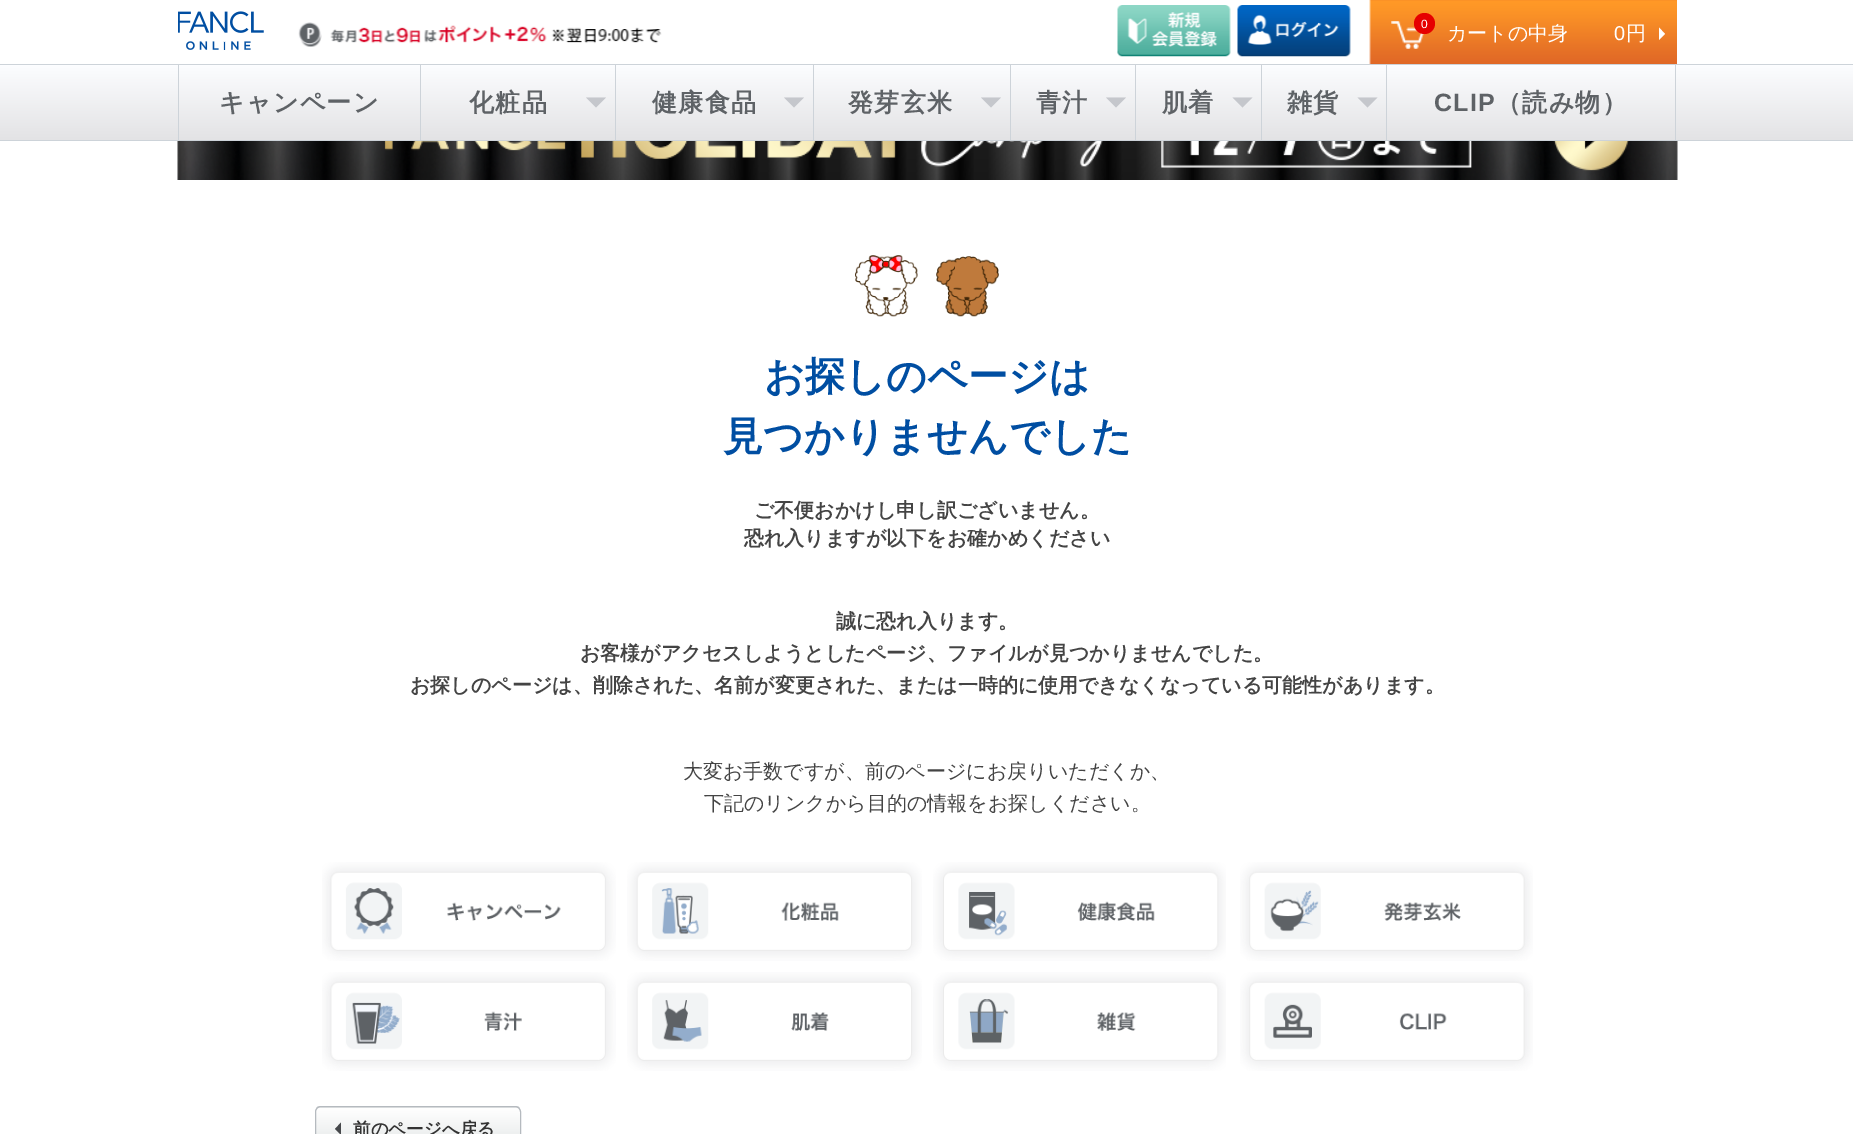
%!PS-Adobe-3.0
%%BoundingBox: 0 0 1853 1134
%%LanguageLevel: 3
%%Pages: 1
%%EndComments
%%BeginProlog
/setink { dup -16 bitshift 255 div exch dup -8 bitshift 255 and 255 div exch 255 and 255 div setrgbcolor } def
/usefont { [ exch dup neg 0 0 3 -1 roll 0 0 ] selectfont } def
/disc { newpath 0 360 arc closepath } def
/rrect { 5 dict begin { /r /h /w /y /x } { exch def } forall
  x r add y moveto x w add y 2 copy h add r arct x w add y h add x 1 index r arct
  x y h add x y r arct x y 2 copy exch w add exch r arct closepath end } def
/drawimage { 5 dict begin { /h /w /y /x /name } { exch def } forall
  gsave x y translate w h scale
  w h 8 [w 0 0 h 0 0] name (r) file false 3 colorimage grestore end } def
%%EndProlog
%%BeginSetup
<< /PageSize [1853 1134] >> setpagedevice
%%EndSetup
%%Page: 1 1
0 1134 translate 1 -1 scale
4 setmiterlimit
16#FFFFFF setink
0 0 1853 1134 rectfill
(img1.raw) 178 11 86 39 drawimage
(img2.raw) 298 22 364 25 drawimage
(img3.raw) 1117 5 114 52 drawimage
(img4.raw) 1237 5 114 52 drawimage
(img5.raw) 1369 0 308 64 drawimage
(img6.raw) 1391 21 33 28 drawimage
16#E60000 setink
1424.5 23.5 10.5 disc fill
/LiberationSans-Regular 12 usefont
16#FFFFFF setink
1421 28 moveto (0) show
/WenQuanYiZenHei-Medium 20 usefont
1447 40 moveto (カートの中身) show
/LiberationSans-Regular 20 usefont
1614 40 moveto (0) show
/WenQuanYiZenHei-Medium 20 usefont
1626 40 moveto (円) show
1659 40 moveto 1659 27.5 lineto 1665 34 lineto closepath fill
gsave 0 65 moveto 1853 65 lineto 1853 140 lineto 0 140 lineto closepath clip newpath
<< /ShadingType 2 /ColorSpace /DeviceRGB /Coords [927 140 927 65] /Extend [true true] /Function << /FunctionType 2 /Domain [0 1] /C0 [0.89 0.89 0.898] /C1 [0.988 0.992 1] /N 1 >> >> shfill grestore
[
    [0 64 1853 1 16#CDD3D9]
    [0 140 1853 1 16#CDD3D9]
    [178 65 1 75 16#CDD3D9]
] { aload pop setink rectfill } forall
/WenQuanYiZenHei-Bold 25 usefont
16#5E6266 setink
219 111 moveto 1.25 0 (キャンペーン) ashow
16#CDD3D9 setink
420 65 1 75 rectfill
16#5E6266 setink
469 111 moveto 1.25 0 (化粧品) ashow
16#C5C7CC setink
586 97.5 moveto 606 97.5 lineto 596 107.5 lineto closepath fill
16#CDD3D9 setink
615 65 1 75 rectfill
16#5E6266 setink
652 111 moveto 1.25 0 (健康食品) ashow
16#C5C7CC setink
784 97.5 moveto 804 97.5 lineto 794 107.5 lineto closepath fill
16#CDD3D9 setink
813 65 1 75 rectfill
16#5E6266 setink
848 111 moveto 1.25 0 (発芽玄米) ashow
16#C5C7CC setink
981 97.5 moveto 1001 97.5 lineto 991 107.5 lineto closepath fill
16#CDD3D9 setink
1010 65 1 75 rectfill
16#5E6266 setink
1036 111 moveto 1.25 0 (青汁) ashow
16#C5C7CC setink
1106 97.5 moveto 1126 97.5 lineto 1116 107.5 lineto closepath fill
16#CDD3D9 setink
1135 65 1 75 rectfill
16#5E6266 setink
1162 111 moveto 1.25 0 (肌着) ashow
16#C5C7CC setink
1232.5 97.5 moveto 1252.5 97.5 lineto 1242.5 107.5 lineto closepath fill
16#CDD3D9 setink
1261 65 1 75 rectfill
16#5E6266 setink
1287 111 moveto 1.25 0 (雑貨) ashow
16#C5C7CC setink
1357.5 97.5 moveto 1377.5 97.5 lineto 1367.5 107.5 lineto closepath fill
16#CDD3D9 setink
1386 65 1 75 rectfill
/LiberationSans-Bold 25 usefont
16#5E6266 setink
1434 111 moveto 1.25 0 (CLIP) ashow
/WenQuanYiZenHei-Bold 25 usefont
1496 111 moveto 1.25 0 (（読み物）) ashow
16#CDD3D9 setink
1675 65 1 75 rectfill
(img7.raw) 177 141 1501 39 drawimage
(img8.raw) 855 255 63 62 drawimage
(img9.raw) 936 256 63 61 drawimage
/WenQuanYiZenHei-Bold 40 usefont
16#004EA2 setink
764 390 moveto (お探しのページは) show
723 450 moveto (見つかりませんでした) show
/WenQuanYiZenHei-Bold 20 usefont
16#444444 setink
[
    [(ご不便おかけし申し訳ございません。) 754 517]
    [(恐れ入りますが以下をお確かめください) 744 545]
    [(誠に恐れ入ります。) 836 628]
    [(お客様がアクセスしようとしたページ、ファイルが見つかりませんでした。) 580 660]
    [(お探しのページは、削除された、名前が変更された、または一時的に使用できなくなっている可能性があります。) 410 692]
] { aload pop moveto show } forall
/WenQuanYiZenHei-Medium 20 usefont
683 778 moveto (大変お手数ですが、前のページにお戻りいただくか、) show
704 810 moveto (下記のリンクから目的の情報をお探しください。) show
(img10.raw) 322 862 294 99 drawimage
(img11.raw) 627 862 295 99 drawimage
(img12.raw) 933 862 293 99 drawimage
(img13.raw) 1240 862 293 99 drawimage
(img14.raw) 322 972 294 99 drawimage
(img15.raw) 627 972 295 99 drawimage
(img16.raw) 933 972 293 99 drawimage
(img17.raw) 1240 972 293 99 drawimage
gsave
315 1106 206 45 6 rrect clip newpath
gsave 315 1106 moveto 521 1106 lineto 521 1108 lineto 315 1108 lineto closepath clip newpath
<< /ShadingType 2 /ColorSpace /DeviceRGB /Coords [418 1065 418 1108] /Extend [true true] /Function << /FunctionType 2 /Domain [0 1] /C0 [1 1 1] /C1 [0.894 0.902 0.906] /N 1 >> >> shfill grestore
gsave 315 1108 moveto 521 1108 lineto 521 1134 lineto 315 1134 lineto closepath clip newpath
<< /ShadingType 2 /ColorSpace /DeviceRGB /Coords [418 1108 418 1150] /Extend [true true] /Function << /FunctionType 2 /Domain [0 1] /C0 [1 1 1] /C1 [0.894 0.902 0.906] /N 1 >> >> shfill grestore
grestore
16#B5BABF setink
315.5 1106.5 205 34 5.5 rrect stroke
16#46484B setink
341 1122.5 moveto 341 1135 lineto 335 1129 lineto closepath fill
/WenQuanYiZenHei-Bold 17.5 usefont
16#333333 setink
353 1135 moveto (前のページへ戻る) show
showpage
%%EOF
